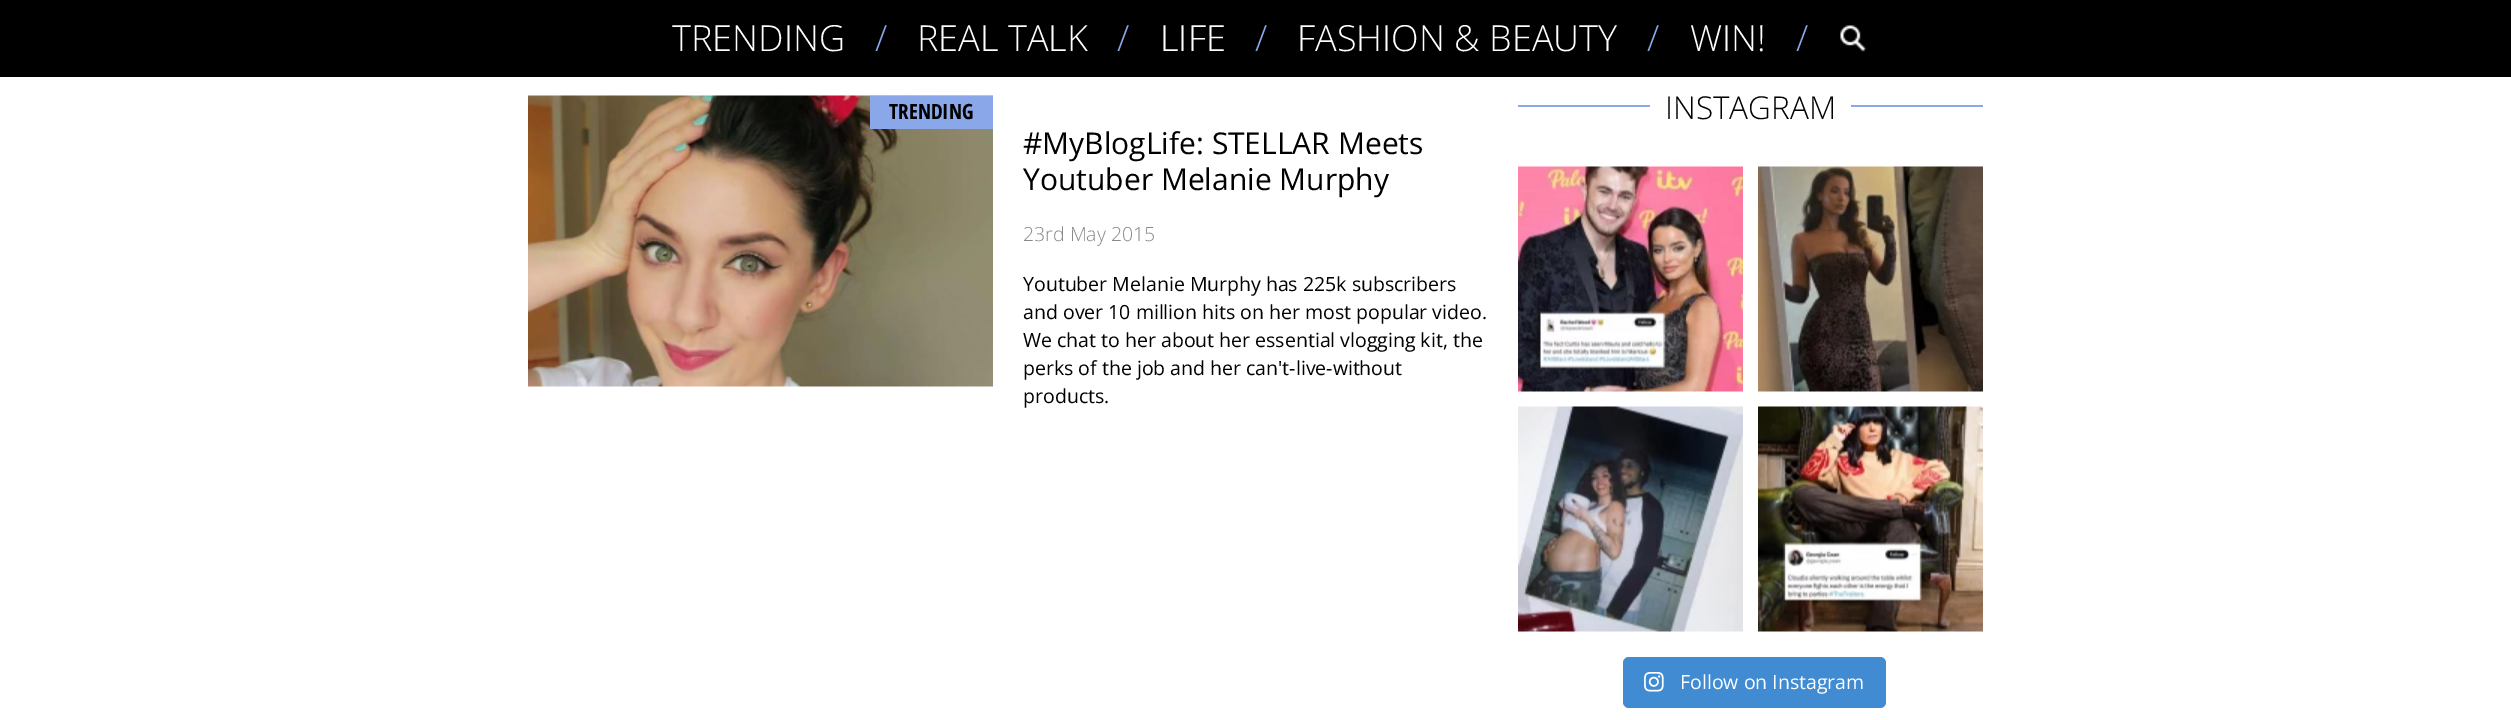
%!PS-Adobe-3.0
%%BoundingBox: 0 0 2511 720
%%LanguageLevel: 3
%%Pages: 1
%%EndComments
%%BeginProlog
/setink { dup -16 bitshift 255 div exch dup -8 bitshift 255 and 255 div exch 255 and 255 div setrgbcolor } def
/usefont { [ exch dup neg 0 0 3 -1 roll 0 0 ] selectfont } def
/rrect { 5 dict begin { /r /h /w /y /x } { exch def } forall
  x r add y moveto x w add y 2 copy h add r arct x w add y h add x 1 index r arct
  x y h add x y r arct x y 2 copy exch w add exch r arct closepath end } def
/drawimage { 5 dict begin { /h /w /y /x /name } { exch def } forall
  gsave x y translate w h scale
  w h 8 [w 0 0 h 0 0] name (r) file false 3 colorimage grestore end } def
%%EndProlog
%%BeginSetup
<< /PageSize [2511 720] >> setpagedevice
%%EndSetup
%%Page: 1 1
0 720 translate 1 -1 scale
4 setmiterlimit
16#FFFFFF setink
0 0 2511 720 rectfill
16#000000 setink
0 0 2511 77 rectfill
/OpenSans-Light 36 usefont
16#FFFFFF setink
672 51 moveto (TRENDING) show
16#8AA7EA setink
875 51 moveto (/) show
16#FFFFFF setink
917 51 moveto (REAL TALK) show
16#8AA7EA setink
1117 51 moveto (/) show
16#FFFFFF setink
1160 51 moveto (LIFE) show
16#8AA7EA setink
1255 51 moveto (/) show
16#FFFFFF setink
1297 51 moveto (FASHION & BEAUTY) show
16#8AA7EA setink
1647 51 moveto (/) show
16#FFFFFF setink
1690 51 moveto (WIN!) show
(img1.raw) 1840 25 27 27 drawimage
16#8AA7EA setink
1796 51 moveto (/) show
(img2.raw) 528 95 465 292 drawimage
870 96 123 33 rectfill
/OpenSansCondensed-Bold 21 usefont
16#000000 setink
889 119 moveto (TRENDING) show
/OpenSans-Regular 30 usefont
1023 154 moveto (#MyBlogLife: STELLAR Meets) show
1023 190 moveto (Youtuber Melanie Murphy) show
/OpenSans-Light 19.5 usefont
16#888888 setink
1023 241 moveto (23rd May 2015) show
/OpenSans-Regular 19.5 usefont
16#000000 setink
[
    [(Youtuber Melanie Murphy has 225k subscribers) 1023 291]
    [(and over 10 million hits on her most popular video.) 1023 319]
    [(We chat to her about her essential vlogging kit, the) 1023 347]
    [(perks of the job and her can't-live-without) 1023 375]
    [(products.) 1023 403]
] { aload pop moveto show } forall
16#8AA7EA setink
1518 105 465 2 rectfill
16#FFFFFF setink
1650 105 201 2 rectfill
/OpenSans-Light 31.5 usefont
16#000000 setink
1665 119 moveto (INSTAGRAM) show
(img3.raw) 1518 166 225 226 drawimage
(img4.raw) 1758 166 225 226 drawimage
(img5.raw) 1518 406 225 226 drawimage
(img6.raw) 1758 406 225 226 drawimage
16#408BD1 setink
1623 657 263 51 6 rrect fill
(img7.raw) 1644 672 20 20 drawimage
/OpenSans-Regular 19.5 usefont
16#FFFFFF setink
1680 689 moveto (Follow on Instagram) show
showpage
%%EOF
